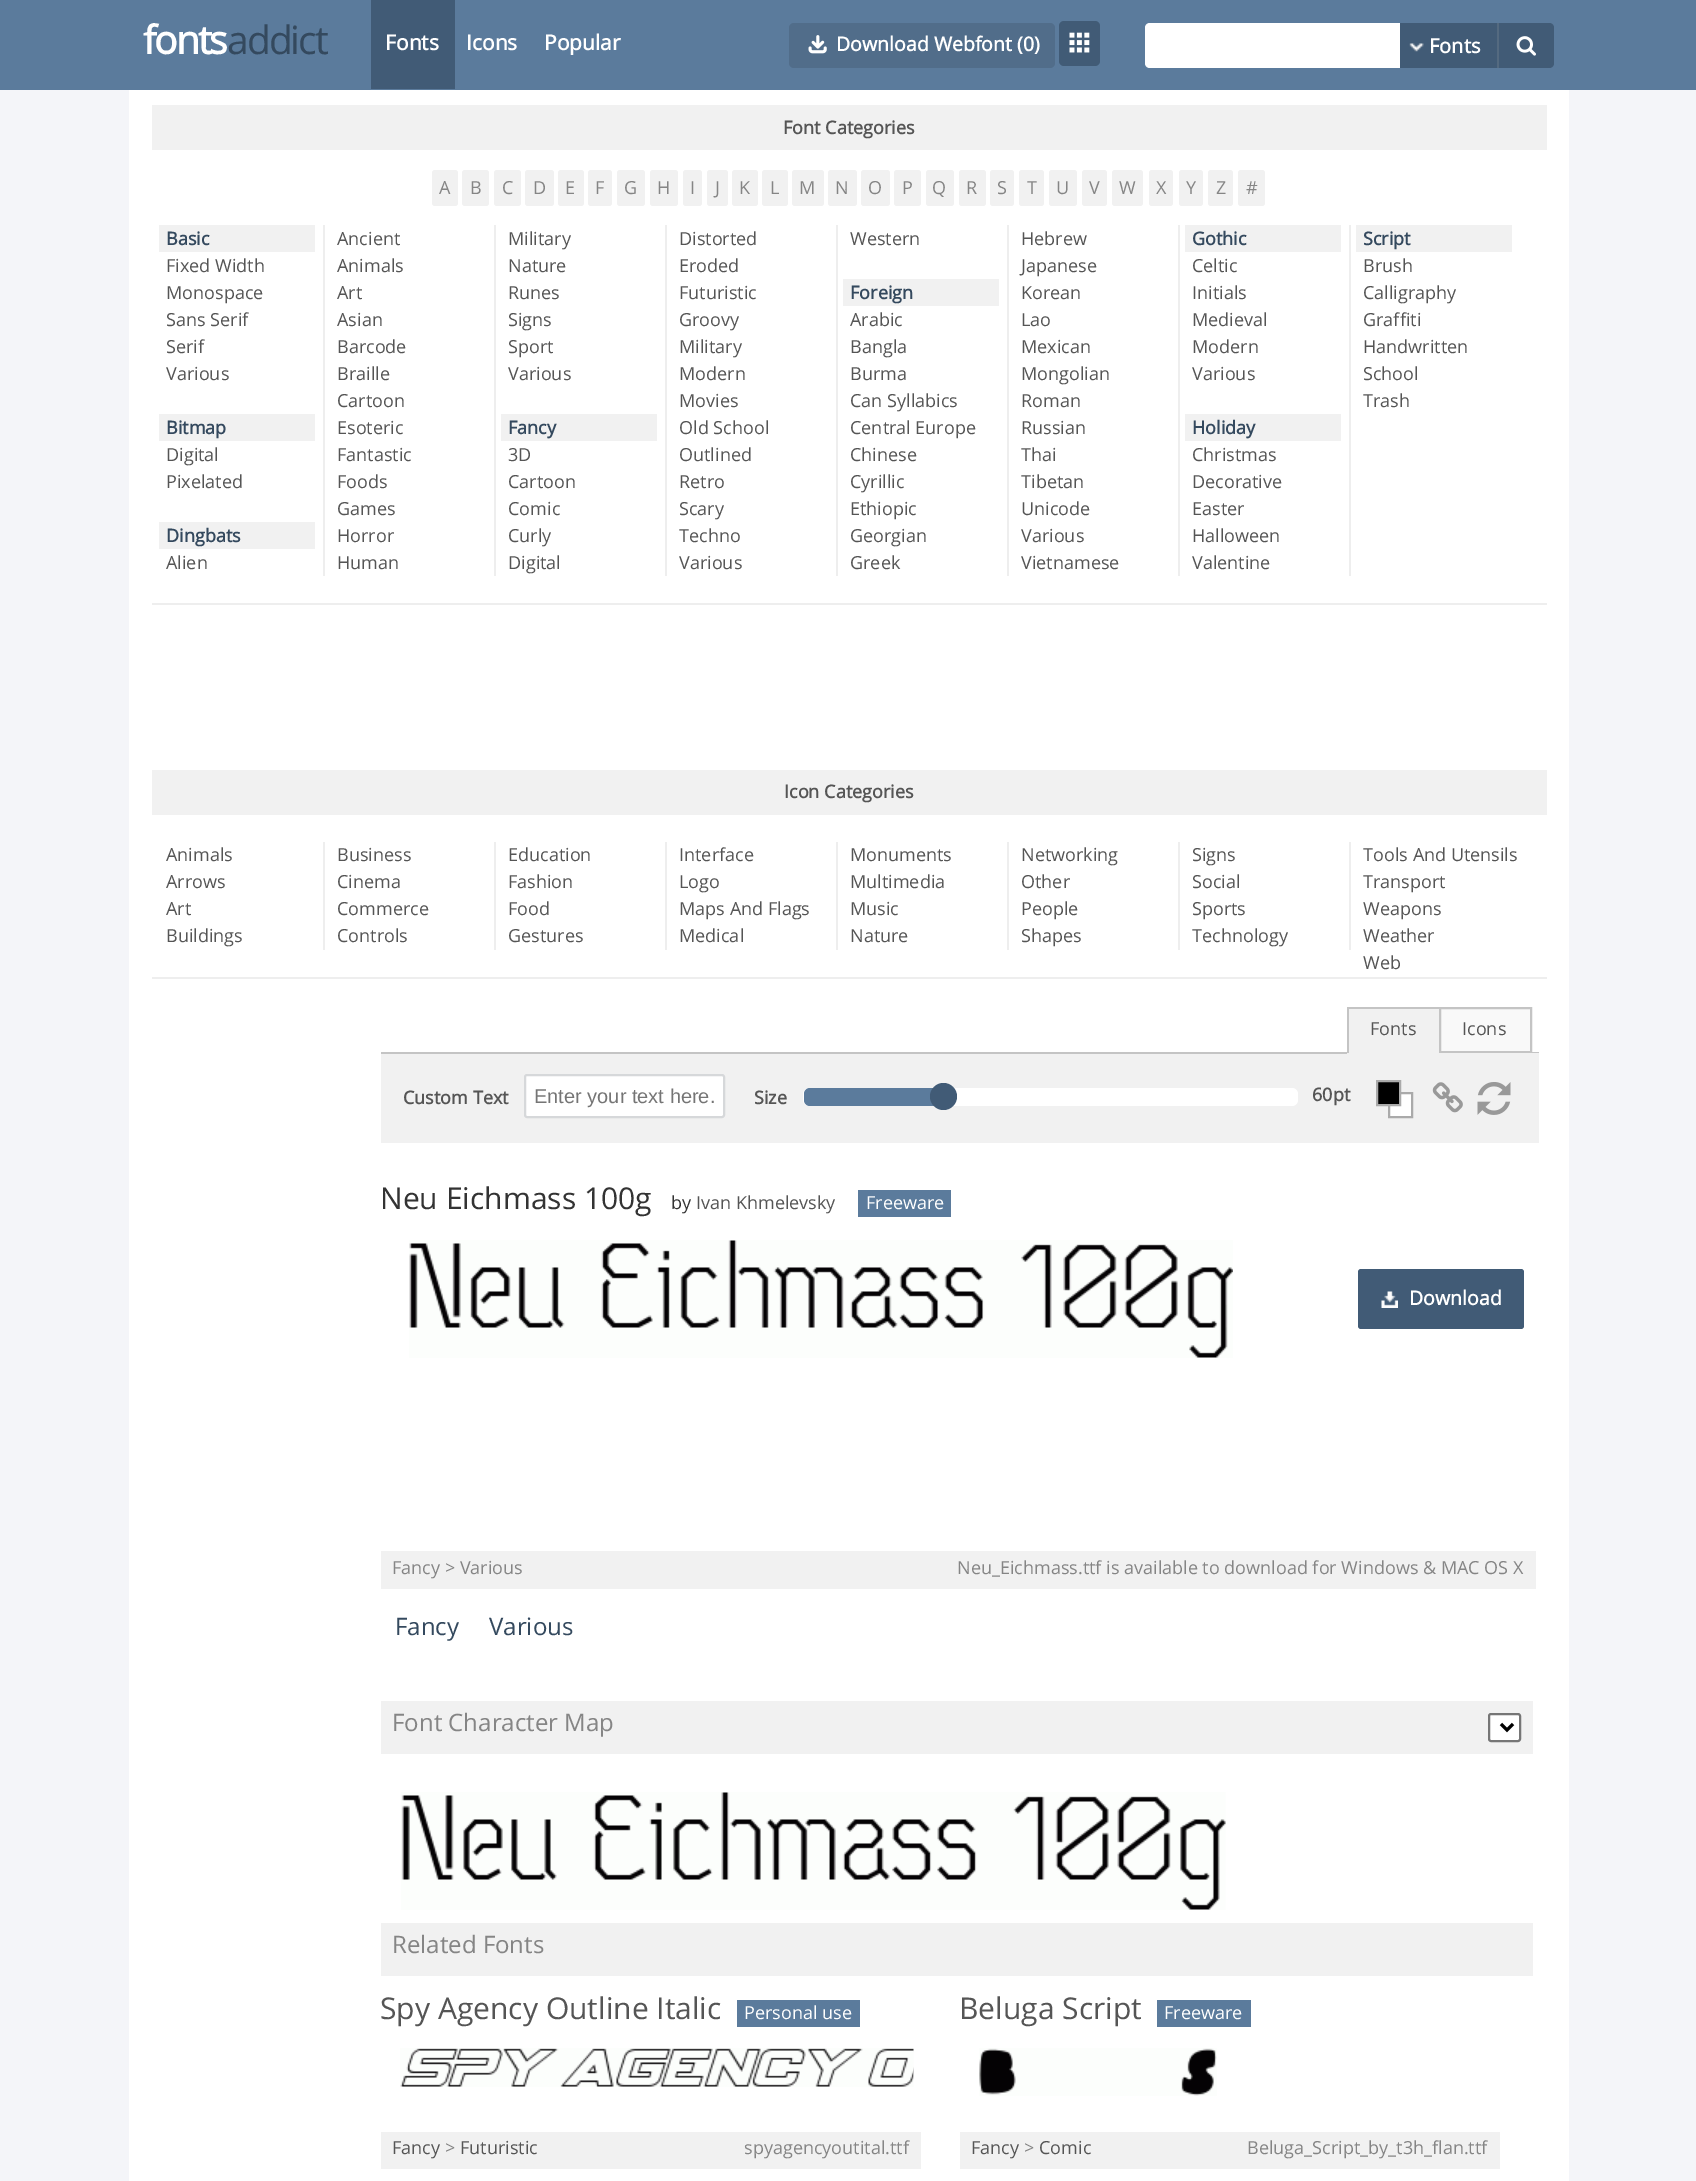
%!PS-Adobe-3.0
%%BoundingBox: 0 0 1696 2181
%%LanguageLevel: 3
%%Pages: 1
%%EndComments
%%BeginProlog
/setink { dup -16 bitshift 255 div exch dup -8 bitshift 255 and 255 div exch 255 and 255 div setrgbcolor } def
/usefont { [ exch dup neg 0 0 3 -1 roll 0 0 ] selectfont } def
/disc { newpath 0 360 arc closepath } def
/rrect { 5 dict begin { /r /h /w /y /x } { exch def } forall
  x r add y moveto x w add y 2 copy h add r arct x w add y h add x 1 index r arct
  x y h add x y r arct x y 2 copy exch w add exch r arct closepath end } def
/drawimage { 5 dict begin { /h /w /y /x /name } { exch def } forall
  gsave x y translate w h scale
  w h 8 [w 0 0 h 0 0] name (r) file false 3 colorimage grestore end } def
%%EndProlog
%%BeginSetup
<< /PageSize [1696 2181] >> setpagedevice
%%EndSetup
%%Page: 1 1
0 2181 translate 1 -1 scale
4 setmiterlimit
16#F4F5F9 setink
0 0 1696 2181 rectfill
16#5B7B9C setink
0 0 1696 90 rectfill
/OpenSans-Bold 39 usefont
16#FFFFFF setink
143 54 moveto -2 0 (fonts) ashow
/OpenSans-Regular 39 usefont
16#34495E setink
227 54 moveto -2 0 (addict) ashow
16#415B76 setink
371 0 84 89 rectfill
/OpenSans-Bold 21 usefont
16#FFFFFF setink
[
    [(Fonts) 385 50]
    [(Icons) 466 50]
    [(Popular) 544 50]
] { aload pop moveto show } forall
16#516D8A setink
789 23 266 45 5 rrect fill
(img1.raw) 808 35 19 19 drawimage
/OpenSans-Bold 19.5 usefont
16#FFFFFF setink
836 51 moveto (Download Webfont \(0\)) show
16#415B76 setink
1059 21 41 45 5 rrect fill
(img2.raw) 1069 32 21 21 drawimage
16#FFFFFF setink
1150 23 moveto 1400 23 lineto 1400 68 lineto 1150 68 lineto 1147 68 1145 66 1145 63 curveto 1145 28 lineto 1145 25 1147 23 1150 23 curveto closepath fill
16#415B76 setink
1400 23 25 45 rectfill
(img3.raw) 1409 43 15 9 drawimage
1425 23 72 45 rectfill
/OpenSans-Bold 20 usefont
16#FFFFFF setink
1429 53 moveto (Fonts) show
16#415B76 setink
1497 23 moveto 1549 23 lineto 1552 23 1554 25 1554 28 curveto 1554 63 lineto 1554 66 1552 68 1549 68 curveto 1497 68 lineto closepath fill
16#546A80 setink
1497 23 2 45 rectfill
(img4.raw) 1516 36 20 20 drawimage
16#FFFFFF setink
129 90 1440 2091 rectfill
16#F1F1F1 setink
152 105 1395 45 rectfill
/OpenSans-Bold 18 usefont
16#555555 setink
783 134 moveto (Font Categories) show
16#F1F1F1 setink
432 170 26 36 3 rrect fill
/OpenSans-Regular 18 usefont
16#858585 setink
439 194 moveto (A) show
16#F1F1F1 setink
462 170 27 36 3 rrect fill
16#858585 setink
470 194 moveto (B) show
16#F1F1F1 setink
494 170 27 36 3 rrect fill
16#858585 setink
502 194 moveto (C) show
16#F1F1F1 setink
525 170 29 36 3 rrect fill
16#858585 setink
533 194 moveto (D) show
16#F1F1F1 setink
558 170 26 36 3 rrect fill
16#858585 setink
565 194 moveto (E) show
16#F1F1F1 setink
588 170 24 36 3 rrect fill
16#858585 setink
595 194 moveto (F) show
16#F1F1F1 setink
617 170 28 36 3 rrect fill
16#858585 setink
624 194 moveto (G) show
16#F1F1F1 setink
650 170 28 36 3 rrect fill
16#858585 setink
657 194 moveto (H) show
16#F1F1F1 setink
683 170 19 36 3 rrect fill
16#858585 setink
690 194 moveto (I) show
16#F1F1F1 setink
707 170 21 36 3 rrect fill
16#858585 setink
715 194 moveto (J) show
16#F1F1F1 setink
732 170 26 36 3 rrect fill
16#858585 setink
739 194 moveto (K) show
16#F1F1F1 setink
762 170 26 36 3 rrect fill
16#858585 setink
770 194 moveto (L) show
16#F1F1F1 setink
792 170 32 36 3 rrect fill
16#858585 setink
799 194 moveto (M) show
16#F1F1F1 setink
828 170 29 36 3 rrect fill
16#858585 setink
835 194 moveto (N) show
16#F1F1F1 setink
861 170 29 36 3 rrect fill
16#858585 setink
868 194 moveto (O) show
16#F1F1F1 setink
894 170 27 36 3 rrect fill
16#858585 setink
902 194 moveto (P) show
16#F1F1F1 setink
926 170 28 36 3 rrect fill
16#858585 setink
932 194 moveto (Q) show
16#F1F1F1 setink
959 170 27 36 3 rrect fill
16#858585 setink
966 194 moveto (R) show
16#F1F1F1 setink
990 170 24 36 3 rrect fill
16#858585 setink
997 194 moveto (S) show
16#F1F1F1 setink
1019 170 25 36 3 rrect fill
16#858585 setink
1027 194 moveto (T) show
16#F1F1F1 setink
1049 170 28 36 3 rrect fill
16#858585 setink
1056 194 moveto (U) show
16#F1F1F1 setink
1082 170 25 36 3 rrect fill
16#858585 setink
1089 194 moveto (V) show
16#F1F1F1 setink
1112 170 31 36 3 rrect fill
16#858585 setink
1119 194 moveto (W) show
16#F1F1F1 setink
1149 170 24 36 3 rrect fill
16#858585 setink
1156 194 moveto (X) show
16#F1F1F1 setink
1179 170 24 36 3 rrect fill
16#858585 setink
1186 194 moveto (Y) show
16#F1F1F1 setink
1208 170 25 36 3 rrect fill
16#858585 setink
1216 194 moveto (Z) show
16#F1F1F1 setink
1238 170 27 36 3 rrect fill
16#858585 setink
1246 194 moveto (#) show
[
    [152 603 1395 2 16#EEEEEE]
    [323 225 2 351 16#EEEEEE]
    [159 225 156 27 16#F1F1F1]
] { aload pop setink rectfill } forall
/OpenSans-Bold 18 usefont
16#34495E setink
166 245 moveto (Basic) show
16#EEEEEE setink
494 225 2 351 rectfill
/OpenSans-Regular 18 usefont
16#555555 setink
337 245 moveto (Ancient) show
16#EEEEEE setink
665 225 2 351 rectfill
16#555555 setink
508 245 moveto (Military) show
16#EEEEEE setink
836 225 2 351 rectfill
16#555555 setink
679 245 moveto (Distorted) show
16#EEEEEE setink
1007 225 2 351 rectfill
16#555555 setink
850 245 moveto (Western) show
16#EEEEEE setink
1178 225 2 351 rectfill
16#555555 setink
1021 245 moveto (Hebrew) show
16#EEEEEE setink
1349 225 2 351 rectfill
16#F1F1F1 setink
1185 225 156 27 rectfill
/OpenSans-Bold 18 usefont
16#34495E setink
1192 245 moveto (Gothic) show
16#F1F1F1 setink
1356 225 156 27 rectfill
16#34495E setink
1363 245 moveto (Script) show
/OpenSans-Regular 18 usefont
16#555555 setink
[
    [(Fixed Width) 166 272]
    [(Animals) 337 272]
    [(Nature) 508 272]
    [(Eroded) 679 272]
    [(Japanese) 1021 272]
    [(Celtic) 1192 272]
    [(Brush) 1363 272]
    [(Monospace) 166 299]
    [(Art) 337 299]
    [(Runes) 508 299]
    [(Futuristic) 679 299]
] { aload pop moveto show } forall
16#F1F1F1 setink
843 279 156 27 rectfill
/OpenSans-Bold 18 usefont
16#34495E setink
850 299 moveto (Foreign) show
/OpenSans-Regular 18 usefont
16#555555 setink
[
    [(Korean) 1021 299]
    [(Initials) 1192 299]
    [(Calligraphy) 1363 299]
    [(Sans Serif) 166 326]
    [(Asian) 337 326]
    [(Signs) 508 326]
    [(Groovy) 679 326]
    [(Arabic) 850 326]
    [(Lao) 1021 326]
    [(Medieval) 1192 326]
    [(Graffiti) 1363 326]
    [(Serif) 166 353]
    [(Barcode) 337 353]
    [(Sport) 508 353]
    [(Military) 679 353]
    [(Bangla) 850 353]
    [(Mexican) 1021 353]
    [(Modern) 1192 353]
    [(Handwritten) 1363 353]
    [(Various) 166 380]
    [(Braille) 337 380]
    [(Various) 508 380]
    [(Modern) 679 380]
    [(Burma) 850 380]
    [(Mongolian) 1021 380]
    [(Various) 1192 380]
    [(School) 1363 380]
    [(Cartoon) 337 407]
    [(Movies) 679 407]
    [(Can Syllabics) 850 407]
    [(Roman) 1021 407]
    [(Trash) 1363 407]
] { aload pop moveto show } forall
16#F1F1F1 setink
159 414 156 27 rectfill
/OpenSans-Bold 18 usefont
16#34495E setink
166 434 moveto (Bitmap) show
/OpenSans-Regular 18 usefont
16#555555 setink
337 434 moveto (Esoteric) show
16#F1F1F1 setink
501 414 156 27 rectfill
/OpenSans-Bold 18 usefont
16#34495E setink
508 434 moveto (Fancy) show
/OpenSans-Regular 18 usefont
16#555555 setink
[
    [(Old School) 679 434]
    [(Central Europe) 850 434]
    [(Russian) 1021 434]
] { aload pop moveto show } forall
16#F1F1F1 setink
1185 414 156 27 rectfill
/OpenSans-Bold 18 usefont
16#34495E setink
1192 434 moveto (Holiday) show
/OpenSans-Regular 18 usefont
16#555555 setink
[
    [(Digital) 166 461]
    [(Fantastic) 337 461]
    [(3D) 508 461]
    [(Outlined) 679 461]
    [(Chinese) 850 461]
    [(Thai) 1021 461]
    [(Christmas) 1192 461]
    [(Pixelated) 166 488]
    [(Foods) 337 488]
    [(Cartoon) 508 488]
    [(Retro) 679 488]
    [(Cyrillic) 850 488]
    [(Tibetan) 1021 488]
    [(Decorative) 1192 488]
    [(Games) 337 515]
    [(Comic) 508 515]
    [(Scary) 679 515]
    [(Ethiopic) 850 515]
    [(Unicode) 1021 515]
    [(Easter) 1192 515]
] { aload pop moveto show } forall
16#F1F1F1 setink
159 522 156 27 rectfill
/OpenSans-Bold 18 usefont
16#34495E setink
166 542 moveto (Dingbats) show
/OpenSans-Regular 18 usefont
16#555555 setink
[
    [(Horror) 337 542]
    [(Curly) 508 542]
    [(Techno) 679 542]
    [(Georgian) 850 542]
    [(Various) 1021 542]
    [(Halloween) 1192 542]
    [(Alien) 166 569]
    [(Human) 337 569]
    [(Digital) 508 569]
    [(Various) 679 569]
    [(Greek) 850 569]
    [(Vietnamese) 1021 569]
    [(Valentine) 1192 569]
] { aload pop moveto show } forall
16#F1F1F1 setink
152 770 1395 45 rectfill
/OpenSans-Bold 18 usefont
16#555555 setink
784 798 moveto (Icon Categories) show
16#EEEEEE setink
152 977 1395 2 rectfill
323 842 2 108 rectfill
/OpenSans-Regular 18 usefont
16#555555 setink
166 861 moveto (Animals) show
16#EEEEEE setink
494 842 2 108 rectfill
16#555555 setink
337 861 moveto (Business) show
16#EEEEEE setink
665 842 2 108 rectfill
16#555555 setink
508 861 moveto (Education) show
16#EEEEEE setink
836 842 2 108 rectfill
16#555555 setink
679 861 moveto (Interface) show
16#EEEEEE setink
1007 842 2 108 rectfill
16#555555 setink
850 861 moveto (Monuments) show
16#EEEEEE setink
1178 842 2 108 rectfill
16#555555 setink
1021 861 moveto (Networking) show
16#EEEEEE setink
1349 842 2 108 rectfill
16#555555 setink
[
    [(Signs) 1192 861]
    [(Tools And Utensils) 1363 861]
    [(Arrows) 166 888]
    [(Cinema) 337 888]
    [(Fashion) 508 888]
    [(Logo) 679 888]
    [(Multimedia) 850 888]
    [(Other) 1021 888]
    [(Social) 1192 888]
    [(Transport) 1363 888]
    [(Art) 166 915]
    [(Commerce) 337 915]
    [(Food) 508 915]
    [(Maps And Flags) 679 915]
    [(Music) 850 915]
    [(People) 1021 915]
    [(Sports) 1192 915]
    [(Weapons) 1363 915]
    [(Buildings) 166 942]
    [(Controls) 337 942]
    [(Gestures) 508 942]
    [(Medical) 679 942]
    [(Nature) 850 942]
    [(Shapes) 1021 942]
    [(Technology) 1192 942]
    [(Weather) 1363 942]
    [(Web) 1363 969]
] { aload pop moveto show } forall
[
    [1349 1009 90 43 16#F1F1F1]
    [1347 1007 92 2 16#C4C4C4]
    [1347 1052 92 1 16#F1F1F1]
    [1347 1007 2 46 16#C4C4C4]
] { aload pop setink rectfill } forall
16#555555 setink
1370 1035 moveto (Fonts) show
16#F9F9F9 setink
1440 1008 moveto 1531 1008 lineto 1531 1052 lineto 1440 1052 lineto closepath gsave fill grestore
16#C4C4C4 setink
2 setlinewidth
stroke
16#555555 setink
1462 1035 moveto (Icons) show
[
    [381 1053 1158 90 16#F1F1F1]
    [381 1052 966 2 16#C4C4C4]
    [1532 1052 7 1 16#C4C4C4]
] { aload pop setink rectfill } forall
/OpenSans-Bold 18 usefont
16#555555 setink
403 1104 moveto (Custom Text) show
16#FFFFFF setink
525 1075 199 42 2 rrect gsave fill grestore
16#D6D8DA setink
stroke
/LiberationSans-Regular 20 usefont
16#757575 setink
534 1103 moveto (Enter your text here.) show
/OpenSans-Bold 18 usefont
16#555555 setink
754 1104 moveto (Size) show
16#FFFFFF setink
803 1088 495 18 6 rrect fill
16#5B7B9C setink
804 1088 138 18 6 rrect fill
16#415B76 setink
943.5 1096.5 13.5 disc fill
16#555555 setink
1312 1101 moveto (60pt) show
16#FFFFFF setink
1389 1093 moveto 1412 1093 lineto 1412 1117 lineto 1389 1117 lineto closepath gsave fill grestore
16#AAAAAA setink
stroke
16#000000 setink
1377 1081 moveto 1400 1081 lineto 1400 1105 lineto 1377 1105 lineto closepath gsave fill grestore
16#AAAAAA setink
stroke
(img5.raw) 1432 1082 31 31 drawimage
(img6.raw) 1477 1082 34 33 drawimage
/OpenSans-Regular 30 usefont
16#333333 setink
380 1209 moveto (Neu Eichmass 100g) show
/OpenSans-Regular 18 usefont
671 1209 moveto (by) show
16#555555 setink
696 1209 moveto (Ivan Khmelevsky) show
16#5B7B9C setink
858 1190 93 27 rectfill
16#FFFFFF setink
866 1209 moveto (Freeware) show
(img7.raw) 409 1240 824 118 drawimage
16#415B76 setink
1358 1269 166 60 3 rrect fill
(img8.raw) 1381 1291 17 17 drawimage
/OpenSans-Bold 19.5 usefont
16#FFFFFF setink
1409 1305 moveto (Download) show
16#F1F1F1 setink
381 1551 1155 38 rectfill
/OpenSans-Regular 18 usefont
16#858585 setink
392 1574 moveto (Fancy > Various) show
957 1574 moveto (Neu_Eichmass.ttf is available to download for Windows & MAC OS X) show
/OpenSans-Regular 24 usefont
16#34495E setink
395 1635 moveto (Fancy) show
489 1635 moveto (Various) show
16#F1F1F1 setink
381 1701 1152 53 rectfill
16#858585 setink
392 1731 moveto (Font Character Map) show
16#FFFFFF setink
1489 1714 31 27 2 rrect gsave fill grestore
16#767676 setink
stroke
16#000000 setink
3 setlinewidth
1501 1724 moveto 1507 1730 lineto 1513 1724 lineto stroke
(img9.raw) 401 1792 825 118 drawimage
16#F1F1F1 setink
381 1923 1152 53 rectfill
16#858585 setink
392 1953 moveto (Related Fonts) show
/OpenSans-Regular 30 usefont
16#555555 setink
380 2019 moveto (Spy Agency Outline Italic) show
16#5B7B9C setink
737 2000 123 27 rectfill
/OpenSans-Regular 18 usefont
16#FFFFFF setink
744 2019 moveto (Personal use) show
(img10.raw) 400 2048 514 39 drawimage
16#F1F1F1 setink
381 2132 540 37 rectfill
16#555555 setink
392 2154 moveto (Fancy) show
16#858585 setink
445 2154 moveto (>) show
16#555555 setink
460 2154 moveto (Futuristic) show
16#858585 setink
744 2154 moveto (spyagencyoutital.ttf) show
/OpenSans-Regular 30 usefont
16#555555 setink
959 2019 moveto (Beluga Script) show
16#5B7B9C setink
1157 2000 94 27 rectfill
/OpenSans-Regular 18 usefont
16#FFFFFF setink
1164 2019 moveto (Freeware) show
(img11.raw) 979 2048 238 48 drawimage
16#F1F1F1 setink
960 2132 540 37 rectfill
16#555555 setink
971 2154 moveto (Fancy) show
16#858585 setink
1024 2154 moveto (>) show
16#555555 setink
1039 2154 moveto (Comic) show
16#858585 setink
1247 2154 moveto (Beluga_Script_by_t3h_flan.ttf) show
showpage
%%EOF
